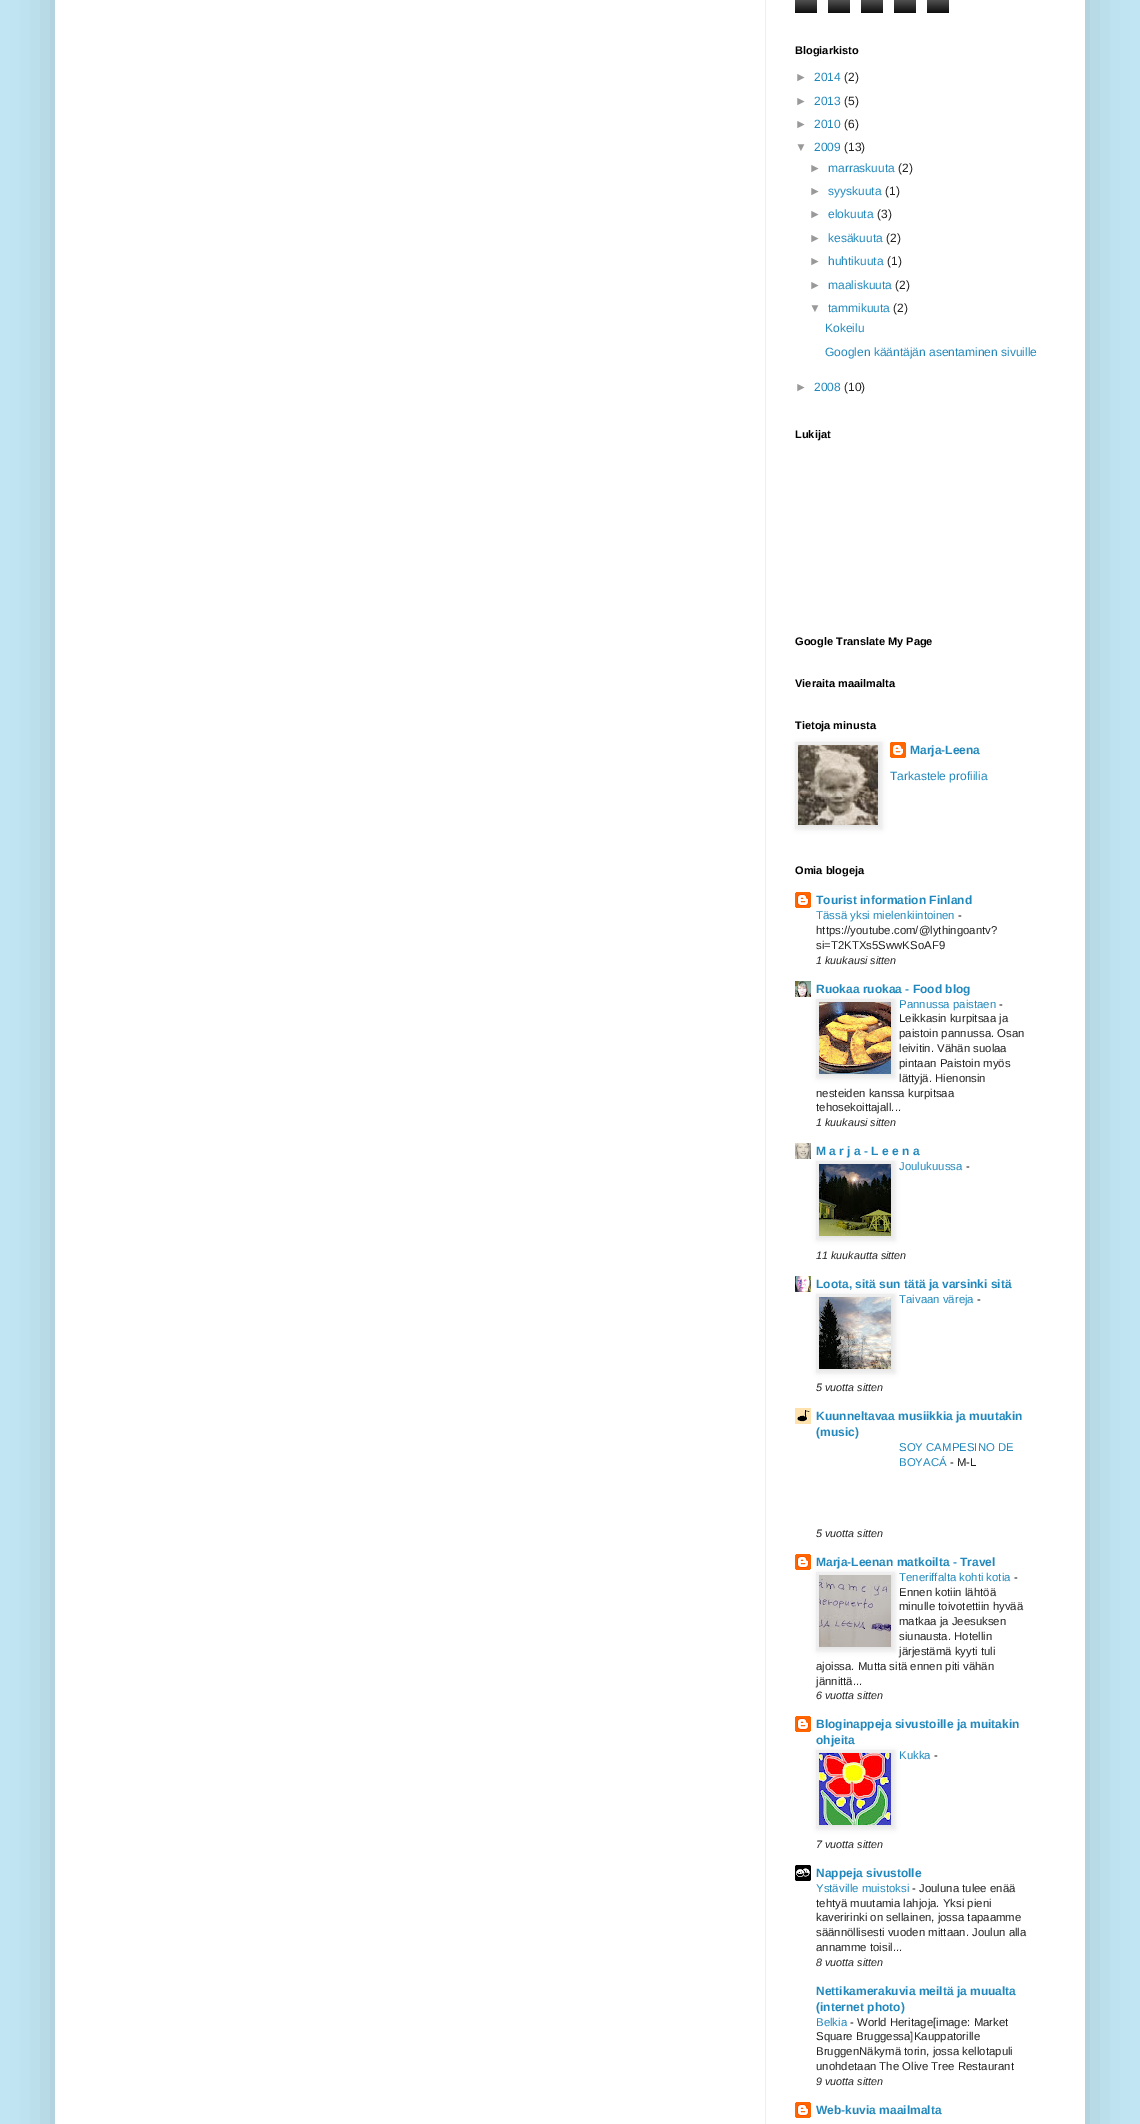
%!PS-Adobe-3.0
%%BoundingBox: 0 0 1140 2124
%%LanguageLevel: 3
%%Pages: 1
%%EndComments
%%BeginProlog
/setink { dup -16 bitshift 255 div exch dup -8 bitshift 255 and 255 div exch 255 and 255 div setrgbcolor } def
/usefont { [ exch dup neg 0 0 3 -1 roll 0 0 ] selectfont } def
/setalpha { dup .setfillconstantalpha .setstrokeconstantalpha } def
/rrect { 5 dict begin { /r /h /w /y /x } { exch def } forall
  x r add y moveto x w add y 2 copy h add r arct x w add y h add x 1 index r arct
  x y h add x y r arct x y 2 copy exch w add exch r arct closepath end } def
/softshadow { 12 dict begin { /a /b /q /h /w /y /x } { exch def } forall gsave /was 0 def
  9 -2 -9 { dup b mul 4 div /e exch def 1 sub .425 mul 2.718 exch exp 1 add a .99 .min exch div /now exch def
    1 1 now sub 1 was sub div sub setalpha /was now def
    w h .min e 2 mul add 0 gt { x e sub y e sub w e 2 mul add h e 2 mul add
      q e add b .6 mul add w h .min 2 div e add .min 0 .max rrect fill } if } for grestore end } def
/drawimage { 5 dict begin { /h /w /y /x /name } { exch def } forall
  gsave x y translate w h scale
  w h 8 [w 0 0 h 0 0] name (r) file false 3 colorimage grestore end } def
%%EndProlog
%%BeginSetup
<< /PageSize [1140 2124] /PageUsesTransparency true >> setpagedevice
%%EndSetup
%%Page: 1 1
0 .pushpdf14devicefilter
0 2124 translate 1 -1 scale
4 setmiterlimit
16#C1E5F2 setink
0 0 1140 2124 rectfill
16#000000 setink
55 -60 1030 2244 0 20 0.15 softshadow
16#FFFFFF setink
55 0 1030 2124 rectfill
16#EEEEEE setink
765 0 1 2124 rectfill
(img1.raw) 795 0 22 13 drawimage
(img1.raw) 828 0 22 13 drawimage
(img1.raw) 861 0 22 13 drawimage
(img1.raw) 894 0 22 13 drawimage
(img1.raw) 927 0 22 13 drawimage
/LiberationSans-Bold 11 usefont
16#000000 setink
795 54 moveto (Blogiarkisto) show
/LiberationSans-Regular 12 usefont
16#999999 setink
795 81 moveto (►) show
16#2288BB setink
814 81 moveto (2014) show
16#222222 setink
844 81 moveto (\(2\)) show
16#999999 setink
795 105 moveto (►) show
16#2288BB setink
814 105 moveto (2013) show
16#222222 setink
844 105 moveto (\(5\)) show
16#999999 setink
795 128 moveto (►) show
16#2288BB setink
814 128 moveto (2010) show
16#222222 setink
844 128 moveto (\(6\)) show
16#999999 setink
795 151 moveto (▼) show
16#2288BB setink
814 151 moveto (2009) show
16#222222 setink
844 151 moveto (\(13\)) show
16#999999 setink
809 172 moveto (►) show
16#2288BB setink
828 172 moveto (marraskuuta) show
16#222222 setink
898 172 moveto (\(2\)) show
16#999999 setink
809 195 moveto (►) show
16#2288BB setink
828 195 moveto (syyskuuta) show
16#222222 setink
885 195 moveto (\(1\)) show
16#999999 setink
809 218 moveto (►) show
16#2288BB setink
828 218 moveto (elokuuta) show
16#222222 setink
877 218 moveto (\(3\)) show
16#999999 setink
809 242 moveto (►) show
16#2288BB setink
828 242 moveto (kesäkuuta) show
16#222222 setink
886 242 moveto (\(2\)) show
16#999999 setink
809 265 moveto (►) show
16#2288BB setink
828 265 moveto (huhtikuuta) show
16#222222 setink
887 265 moveto (\(1\)) show
16#999999 setink
809 289 moveto (►) show
16#2288BB setink
828 289 moveto (maaliskuuta) show
16#222222 setink
895 289 moveto (\(2\)) show
16#999999 setink
809 312 moveto (▼) show
16#2288BB setink
828 312 moveto (tammikuuta) show
16#222222 setink
893 312 moveto (\(2\)) show
16#2288BB setink
825 332 moveto (Kokeilu) show
825 356 moveto (Googlen kääntäjän asentaminen sivuille) show
16#999999 setink
795 391 moveto (►) show
16#2288BB setink
814 391 moveto (2008) show
16#222222 setink
844 391 moveto (\(10\)) show
/LiberationSans-Bold 11 usefont
16#000000 setink
[
    [(Lukijat) 795 438]
    [(Google Translate My Page) 795 645]
    [(Vieraita maailmalta) 795 687]
    [(Tietoja minusta) 795 729]
] { aload pop moveto show } forall
(img3.raw) 890 742 16 16 drawimage
796 743 86 86 0 2.5 0.1 softshadow
16#EEEEEE setink
795.5 742.5 85 85 rectstroke
(img2.raw) 798 745 80 80 drawimage
/LiberationSans-Bold 12 usefont
16#2288BB setink
910 754 moveto (Marja-Leena) show
/LiberationSans-Regular 12 usefont
890 780 moveto (Tarkastele profiilia) show
/LiberationSans-Bold 11 usefont
16#000000 setink
795 874 moveto (Omia blogeja) show
(img4.raw) 795 892 16 16 drawimage
/LiberationSans-Bold 12 usefont
16#2288BB setink
816 904 moveto (Tourist information Finland) show
/LiberationSans-Regular 11.4 usefont
816 919 moveto (Tässä yksi mielenkiintoinen) show
16#222222 setink
[
    [(-) 958 919]
    [(https://youtube.com/@lythingoantv?) 816 934]
    [(si=T2KTXs5SwwKSoAF9) 816 949]
] { aload pop moveto show } forall
/LiberationSans-Italic 10.75 usefont
816 964 moveto (1 kuukausi sitten) show
(img5.raw) 795 981 16 16 drawimage
/LiberationSans-Bold 12 usefont
16#2288BB setink
816 993 moveto (Ruokaa ruokaa - Food blog) show
16#000000 setink
817 1000 78 78 0 2.5 0.1 softshadow
16#EEEEEE setink
816.5 999.5 77 77 rectstroke
(img6.raw) 819 1002 72 72 drawimage
/LiberationSans-Regular 11.4 usefont
16#2288BB setink
899 1008 moveto (Pannussa paistaen) show
16#222222 setink
[
    [(-) 999 1008]
    [(Leikkasin kurpitsaa ja) 899 1022]
    [(paistoin pannussa. Osan) 899 1037]
    [(leivitin. Vähän suolaa) 899 1052]
    [(pintaan Paistoin myös) 899 1067]
    [(lättyjä. Hienonsin) 899 1082]
    [(nesteiden kanssa kurpitsaa) 816 1097]
    [(tehosekoittajall...) 816 1111]
] { aload pop moveto show } forall
/LiberationSans-Italic 10.75 usefont
816 1126 moveto (1 kuukausi sitten) show
(img7.raw) 795 1143 16 16 drawimage
/LiberationSans-Bold 12 usefont
16#2288BB setink
816 1155 moveto (M a r j a - L e e n a) show
16#000000 setink
817 1162 78 78 0 2.5 0.1 softshadow
16#EEEEEE setink
816.5 1161.5 77 77 rectstroke
(img8.raw) 819 1164 72 72 drawimage
/LiberationSans-Regular 11.4 usefont
16#2288BB setink
899 1170 moveto (Joulukuussa) show
16#222222 setink
966 1170 moveto (-) show
/LiberationSans-Italic 10.75 usefont
816 1259 moveto (11 kuukautta sitten) show
(img9.raw) 795 1276 16 16 drawimage
/LiberationSans-Bold 12 usefont
16#2288BB setink
816 1288 moveto (Loota, sitä sun tätä ja varsinki sitä) show
16#000000 setink
817 1295 78 78 0 2.5 0.1 softshadow
16#EEEEEE setink
816.5 1294.5 77 77 rectstroke
(img10.raw) 819 1297 72 72 drawimage
/LiberationSans-Regular 11.4 usefont
16#2288BB setink
899 1303 moveto (Taivaan väreja) show
16#222222 setink
977 1303 moveto (-) show
/LiberationSans-Italic 10.75 usefont
816 1391 moveto (5 vuotta sitten) show
(img11.raw) 795 1408 16 16 drawimage
/LiberationSans-Bold 12 usefont
16#2288BB setink
816 1420 moveto (Kuunneltavaa musiikkia ja muutakin) show
816 1436 moveto (\(music\)) show
/LiberationSans-Regular 11.4 usefont
899 1451 moveto (SOY CAMPESINO DE) show
899 1466 moveto (BOYACÁ) show
16#222222 setink
950 1466 moveto (- M-L) show
/LiberationSans-Italic 10.75 usefont
816 1537 moveto (5 vuotta sitten) show
(img4.raw) 795 1554 16 16 drawimage
/LiberationSans-Bold 12 usefont
16#2288BB setink
816 1566 moveto (Marja-Leenan matkoilta - Travel) show
16#000000 setink
817 1573 78 78 0 2.5 0.1 softshadow
16#EEEEEE setink
816.5 1572.5 77 77 rectstroke
(img12.raw) 819 1575 72 72 drawimage
/LiberationSans-Regular 11.4 usefont
16#2288BB setink
899 1581 moveto (Teneriffalta kohti kotia) show
16#222222 setink
[
    [(-) 1014 1581]
    [(Ennen kotiin lähtöä) 899 1596]
    [(minulle toivotettiin hyvää) 899 1610]
    [(matkaa ja Jeesuksen) 899 1625]
    [(siunausta. Hotellin) 899 1640]
    [(järjestämä kyyti tuli) 899 1655]
    [(ajoissa. Mutta sitä ennen piti vähän) 816 1670]
    [(jännittä...) 816 1685]
] { aload pop moveto show } forall
/LiberationSans-Italic 10.75 usefont
816 1699 moveto (6 vuotta sitten) show
(img4.raw) 795 1716 16 16 drawimage
/LiberationSans-Bold 12 usefont
16#2288BB setink
816 1728 moveto (Bloginappeja sivustoille ja muitakin) show
816 1744 moveto (ohjeita) show
16#000000 setink
817 1751 78 78 0 2.5 0.1 softshadow
16#EEEEEE setink
816.5 1750.5 77 77 rectstroke
(img13.raw) 819 1753 72 72 drawimage
/LiberationSans-Regular 11.4 usefont
16#2288BB setink
899 1759 moveto (Kukka) show
16#222222 setink
934 1759 moveto (-) show
/LiberationSans-Italic 10.75 usefont
816 1848 moveto (7 vuotta sitten) show
(img14.raw) 795 1865 16 16 drawimage
/LiberationSans-Bold 12 usefont
16#2288BB setink
816 1877 moveto (Nappeja sivustolle) show
/LiberationSans-Regular 11.4 usefont
816 1892 moveto (Ystäville muistoksi) show
16#222222 setink
[
    [(- Jouluna tulee enää) 912 1892]
    [(tehtyä muutamia lahjoja. Yksi pieni) 816 1907]
    [(kaveririnki on sellainen, jossa tapaamme) 816 1921]
    [(säännöllisesti vuoden mittaan. Joulun alla) 816 1936]
    [(annamme toisil...) 816 1951]
] { aload pop moveto show } forall
/LiberationSans-Italic 10.75 usefont
816 1966 moveto (8 vuotta sitten) show
/LiberationSans-Bold 12 usefont
16#2288BB setink
816 1995 moveto (Nettikamerakuvia meiltä ja muualta) show
816 2011 moveto (\(internet photo\)) show
/LiberationSans-Regular 11.4 usefont
816 2026 moveto (Belkia) show
16#222222 setink
[
    [(- World Heritage[image: Market) 850 2026]
    [(Square Bruggessa]Kauppatorille) 816 2040]
    [(BruggenNäkymä torin, jossa kellotapuli) 816 2055]
    [(unohdetaan The Olive Tree Restaurant) 816 2070]
] { aload pop moveto show } forall
/LiberationSans-Italic 10.75 usefont
816 2085 moveto (9 vuotta sitten) show
(img4.raw) 795 2102 16 16 drawimage
/LiberationSans-Bold 12 usefont
16#2288BB setink
816 2114 moveto (Web-kuvia maailmalta) show
.poppdf14devicefilter showpage
%%EOF
